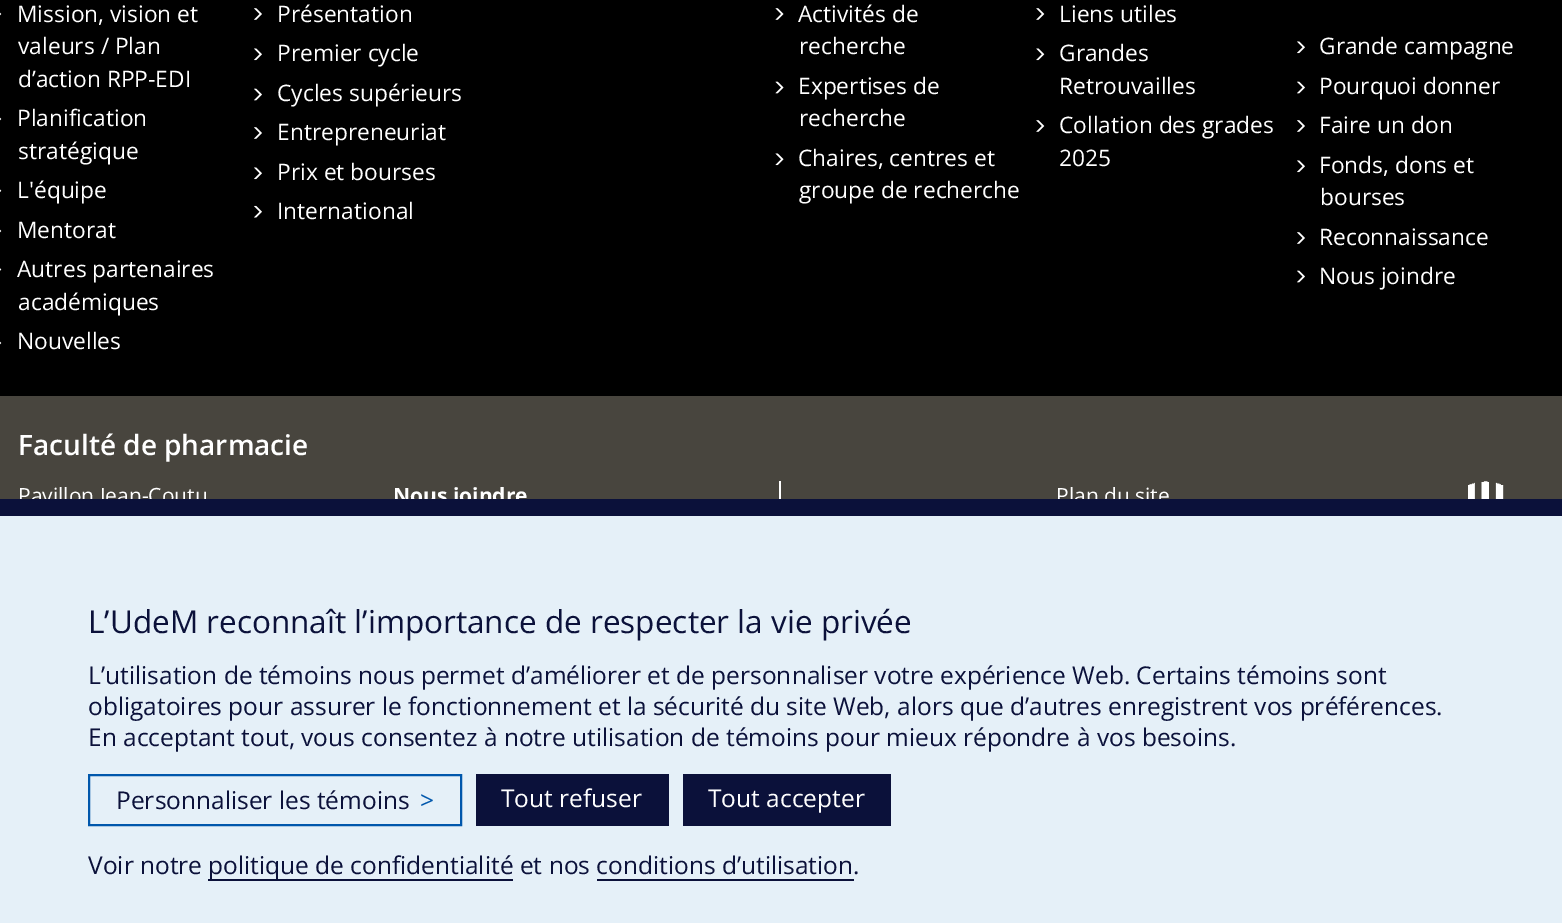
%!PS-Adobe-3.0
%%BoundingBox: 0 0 1562 923
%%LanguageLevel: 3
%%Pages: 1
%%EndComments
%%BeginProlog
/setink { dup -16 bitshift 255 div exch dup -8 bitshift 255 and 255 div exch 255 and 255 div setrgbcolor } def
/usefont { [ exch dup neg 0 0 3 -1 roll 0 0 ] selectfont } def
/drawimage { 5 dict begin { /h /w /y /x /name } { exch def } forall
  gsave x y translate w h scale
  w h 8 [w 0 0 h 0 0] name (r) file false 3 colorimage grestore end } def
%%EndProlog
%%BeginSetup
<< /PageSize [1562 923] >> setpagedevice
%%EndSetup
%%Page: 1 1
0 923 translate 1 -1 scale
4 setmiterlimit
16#000000 setink
0 0 1562 923 rectfill
(img1.raw) 0 12 2 4 drawimage
/OpenSans-Regular 22.75 usefont
16#FFFFFF setink
[
    [(Mission, vision et) 17 22]
    [(valeurs / Plan) 18 54]
    [(d’action RPP-EDI) 18 87]
] { aload pop moveto show } forall
(img1.raw) 0 117 2 4 drawimage
17 126 moveto (Planification) show
18 159 moveto (stratégique) show
(img2.raw) 0 189 2 3 drawimage
17 198 moveto (L'équipe) show
(img1.raw) 0 229 2 4 drawimage
17 238 moveto (Mentorat) show
(img3.raw) 0 268 2 3 drawimage
17 277 moveto (Autres partenaires) show
18 310 moveto (académiques) show
(img1.raw) 0 341 2 4 drawimage
17 349 moveto (Nouvelles) show
(img4.raw) 254 8 8 12 drawimage
277 22 moveto (Présentation) show
(img5.raw) 254 48 8 13 drawimage
277 61 moveto (Premier cycle) show
(img6.raw) 254 88 8 13 drawimage
277 101 moveto (Cycles supérieurs) show
(img4.raw) 254 127 8 12 drawimage
277 140 moveto (Entrepreneuriat) show
(img5.raw) 254 167 8 13 drawimage
277 180 moveto (Prix et bourses) show
(img7.raw) 254 205 8 13 drawimage
277 219 moveto (International) show
(img8.raw) 775 8 9 12 drawimage
798 22 moveto (Activités de) show
799 54 moveto (recherche) show
(img9.raw) 775 81 9 13 drawimage
798 94 moveto (Expertises de) show
799 126 moveto (recherche) show
(img10.raw) 775 153 9 13 drawimage
798 166 moveto (Chaires, centres et) show
799 198 moveto (groupe de recherche) show
(img11.raw) 1036 8 9 12 drawimage
1059 22 moveto (Liens utiles) show
(img12.raw) 1036 48 9 13 drawimage
1059 61 moveto (Grandes) show
1059 94 moveto (Retrouvailles) show
(img11.raw) 1036 120 9 12 drawimage
1059 133 moveto (Collation des grades) show
1059 166 moveto (2025) show
(img5.raw) 1297 41 8 13 drawimage
1319 54 moveto (Grande campagne) show
(img6.raw) 1297 81 8 13 drawimage
1319 94 moveto (Pourquoi donner) show
(img4.raw) 1297 120 8 12 drawimage
1319 133 moveto (Faire un don) show
(img5.raw) 1297 160 8 13 drawimage
1319 173 moveto (Fonds, dons et) show
1320 205 moveto (bourses) show
(img4.raw) 1297 232 8 12 drawimage
1319 245 moveto (Reconnaissance) show
(img6.raw) 1297 270 8 13 drawimage
1319 284 moveto (Nous joindre) show
16#48453E setink
0 396 1562 103 rectfill
/OpenSans-SemiBold 28 usefont
16#FFFFFF setink
18 455 moveto (Faculté de pharmacie) show
/OpenSans-Regular 21 usefont
18 503 moveto (Pavillon Jean-Coutu) show
779 481 2 18 rectfill
/OpenSans-Bold 21 usefont
393 503 moveto (Nous joindre) show
/OpenSans-Regular 21 usefont
1056 503 moveto (Plan du site) show
(img13.raw) 1468 481 36 18 drawimage
16#E5F0F8 setink
0 516 1562 407 rectfill
16#0B113A setink
0 499 1562 17 rectfill
/OpenSans-Regular 31.5 usefont
88 633 moveto (L’UdeM reconnaît l’importance de respecter la vie privée) show
/OpenSans-Regular 24.5 usefont
[
    [(L’utilisation de témoins nous permet d’améliorer et de personnaliser votre expérience Web. Certains témoins sont) 88 684]
    [(obligatoires pour assurer le fonctionnement et la sécurité du site Web, alors que d’autres enregistrent vos préférences.) 88 715]
    [(En acceptant tout, vous consentez à notre utilisation de témoins pour mieux répondre à vos besoins.) 88 746]
] { aload pop moveto show } forall
16#0057AC setink
2 setlinewidth
89 775 372 50 rectstroke
16#0B113A setink
116 809 moveto (Personnaliser les témoins) show
16#0057AC setink
420 809 moveto (>) show
16#0B113A setink
476 774 193 52 rectfill
16#FFFFFF setink
501 807 moveto (Tout refuser) show
16#0B113A setink
683 774 208 52 rectfill
16#FFFFFF setink
708 807 moveto (Tout accepter) show
16#0B113A setink
88 874 moveto (Voir notre) show
208 879 305 2 rectfill
208 874 moveto (politique de confidentialité et nos conditions d’utilisation.) show
597 879 257 2 rectfill
showpage
%%EOF
